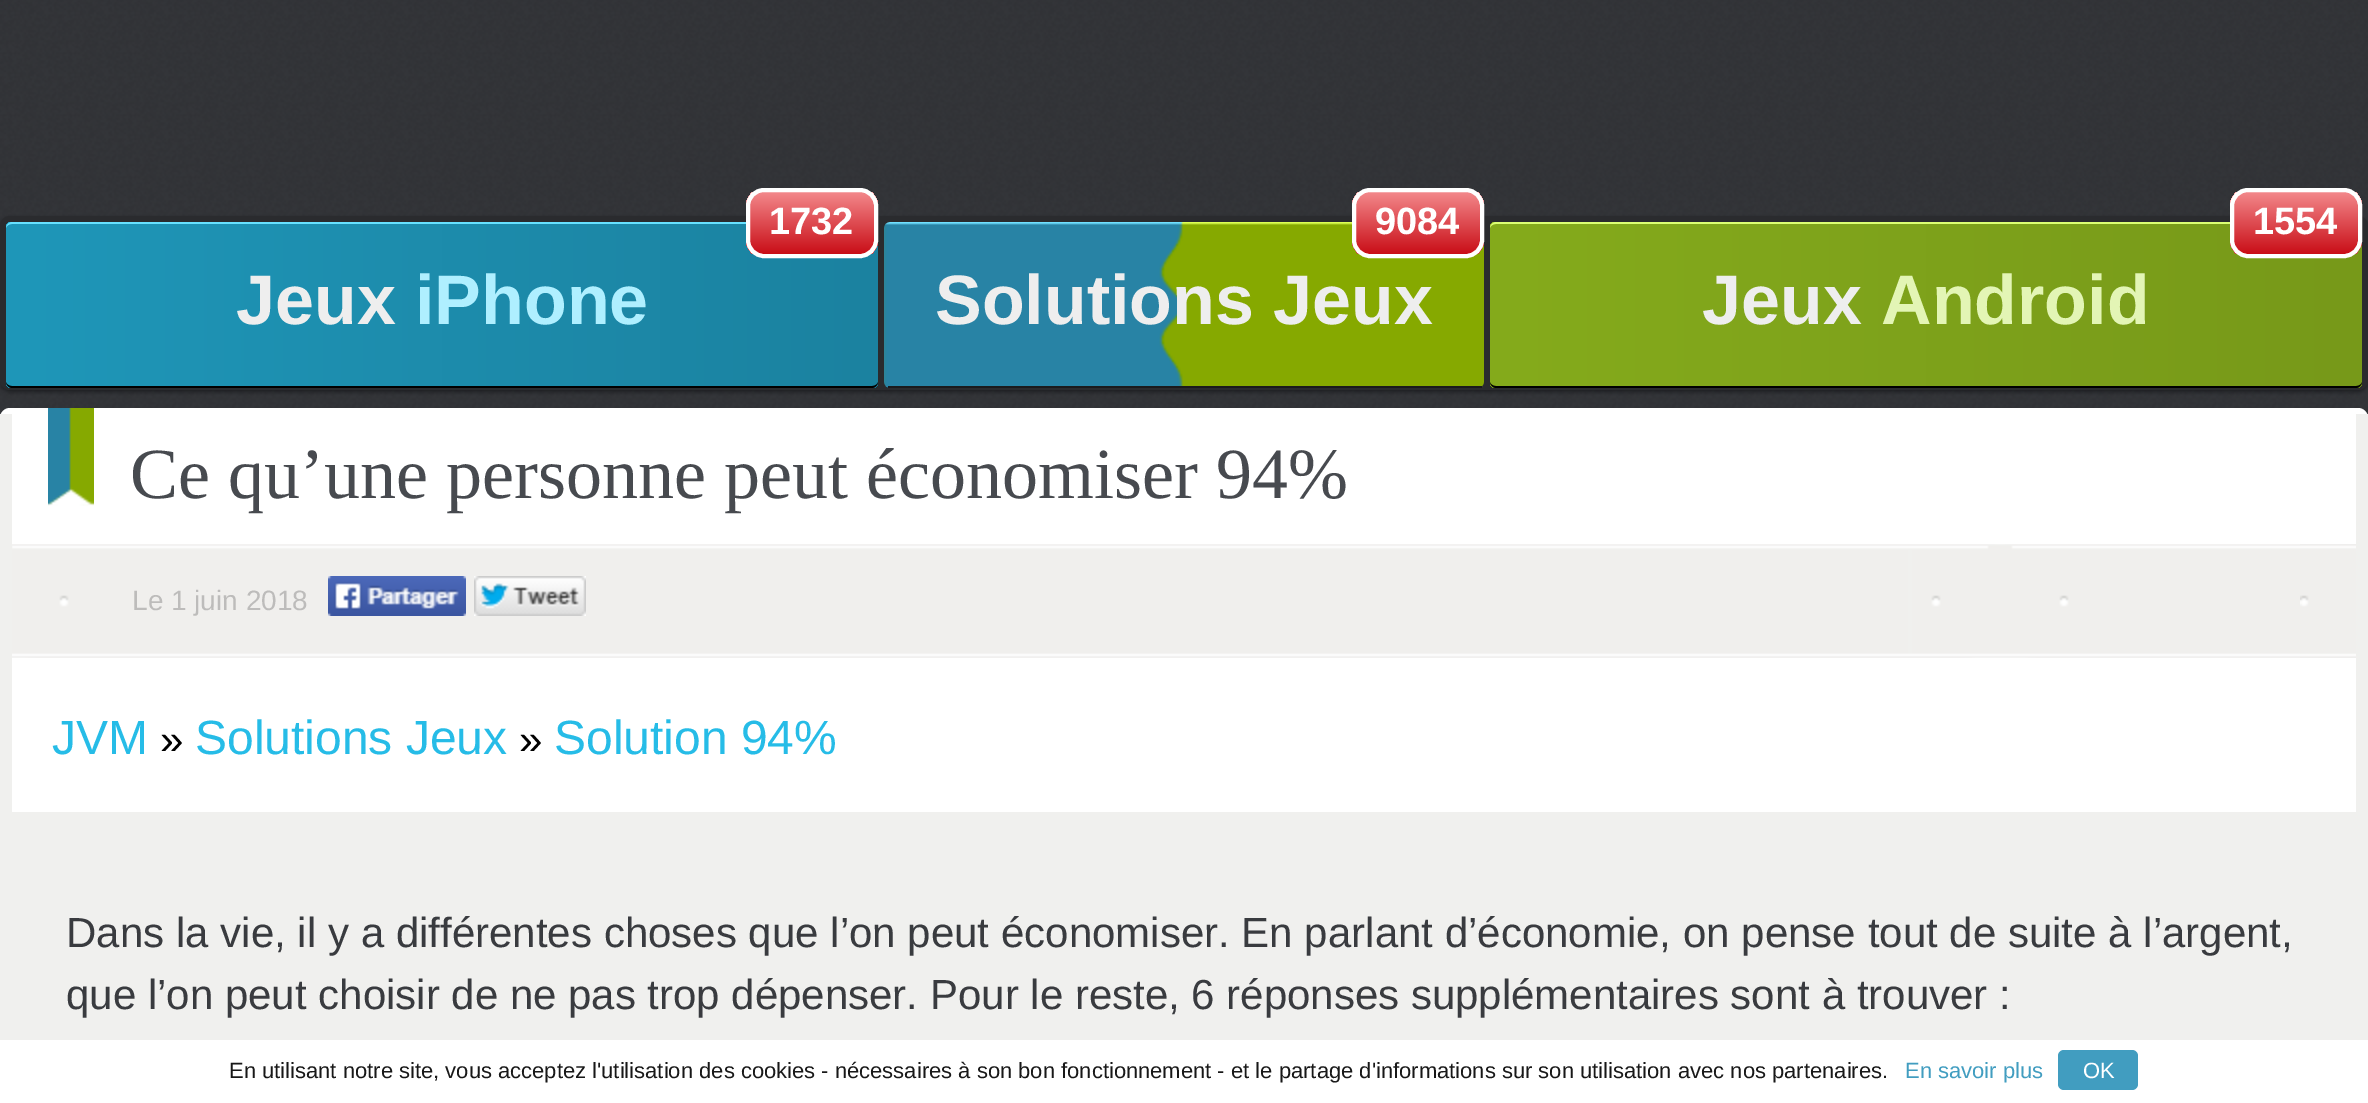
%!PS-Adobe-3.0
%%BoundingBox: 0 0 2368 1103
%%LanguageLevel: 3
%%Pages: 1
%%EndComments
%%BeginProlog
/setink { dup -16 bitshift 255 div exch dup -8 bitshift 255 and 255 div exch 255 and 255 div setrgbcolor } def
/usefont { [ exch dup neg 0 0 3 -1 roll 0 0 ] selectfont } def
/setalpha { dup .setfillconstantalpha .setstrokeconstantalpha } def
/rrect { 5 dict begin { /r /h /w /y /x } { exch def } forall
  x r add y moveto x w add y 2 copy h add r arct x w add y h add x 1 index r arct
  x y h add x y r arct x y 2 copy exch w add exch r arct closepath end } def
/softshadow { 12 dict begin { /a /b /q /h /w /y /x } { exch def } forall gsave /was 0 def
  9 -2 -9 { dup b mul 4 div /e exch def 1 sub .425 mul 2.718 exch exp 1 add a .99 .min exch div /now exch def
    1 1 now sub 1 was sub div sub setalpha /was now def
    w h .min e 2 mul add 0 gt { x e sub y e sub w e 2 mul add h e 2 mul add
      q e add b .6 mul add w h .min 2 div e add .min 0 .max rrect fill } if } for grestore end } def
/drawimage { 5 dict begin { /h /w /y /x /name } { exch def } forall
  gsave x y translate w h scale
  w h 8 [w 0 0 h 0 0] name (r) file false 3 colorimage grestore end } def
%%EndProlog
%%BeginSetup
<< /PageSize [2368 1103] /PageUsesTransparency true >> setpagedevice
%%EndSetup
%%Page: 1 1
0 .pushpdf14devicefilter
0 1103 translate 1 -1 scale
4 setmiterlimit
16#FFFFFF setink
0 0 2368 1103 rectfill
(img1.raw) 0 0 2368 414 drawimage
16#000000 setink
0 218 2368 174 10 2 0.4 softshadow
16#2A2B2E setink
0 216 2368 174 10 rrect fill
gsave 6 222 872 166 6 rrect clip newpath
<< /ShadingType 2 /ColorSpace /DeviceRGB /Coords [6 305 878 305] /Extend [true true] /Function << /FunctionType 2 /Domain [0 1] /C0 [0.122 0.592 0.725] /C1 [0.106 0.51 0.627] /N 1 >> >> shfill grestore
16#67E1FF setink
12 222 moveto 9 222 6 225 6 228 curveto 6 226 9 224 12 224 curveto 872 224 lineto 875 224 878 226 878 228 curveto 878 225 875 222 872 222 curveto closepath fill
16#000000 setink
872 388 moveto 875 388 878 385 878 382 curveto 878 384 875 386 872 386 curveto 12 386 lineto 9 386 6 384 6 382 curveto 6 385 9 388 12 388 curveto closepath fill
gsave
746 188 132 70 18 rrect clip newpath
gsave 746 192 moveto 878 192 lineto 878 254 lineto 746 254 lineto closepath clip newpath
<< /ShadingType 2 /ColorSpace /DeviceRGB /Coords [812 192 812 254] /Extend [true true] /Function << /FunctionType 2 /Domain [0 1] /C0 [0.953 0.533 0.545] /C1 [0.788 0.055 0.09] /N 1 >> >> shfill grestore
grestore
16#FFFFFF setink
4 setlinewidth
748 190 128 66 16 rrect stroke
/LiberationSans-Bold 38 usefont
769 234 moveto (1732) show
/LiberationSans-Bold 70 usefont
16#EEEEEE setink
236 324 moveto (Jeux) show
16#AFEFFF setink
415 324 moveto (iPhone) show
(img2.raw) 884 222 600 166 drawimage
16#1A1A1C setink
888 386 594 2 rectfill
gsave
1352 188 132 70 18 rrect clip newpath
gsave 1352 192 moveto 1484 192 lineto 1484 254 lineto 1352 254 lineto closepath clip newpath
<< /ShadingType 2 /ColorSpace /DeviceRGB /Coords [1418 192 1418 254] /Extend [true true] /Function << /FunctionType 2 /Domain [0 1] /C0 [0.953 0.533 0.545] /C1 [0.788 0.055 0.09] /N 1 >> >> shfill grestore
grestore
16#FFFFFF setink
1354 190 128 66 16 rrect stroke
/LiberationSans-Bold 38 usefont
1375 234 moveto (9084) show
/LiberationSans-Bold 70 usefont
16#EEEEEE setink
935 324 moveto (Solutions Jeux) show
gsave 1490 222 872 166 6 rrect clip newpath
<< /ShadingType 2 /ColorSpace /DeviceRGB /Coords [1490 305 2362 305] /Extend [true true] /Function << /FunctionType 2 /Domain [0 1] /C0 [0.522 0.671 0.11] /C1 [0.467 0.6 0.098] /N 1 >> >> shfill grestore
16#DCFF73 setink
1496 222 moveto 1493 222 1490 225 1490 228 curveto 1490 226 1493 224 1496 224 curveto 2356 224 lineto 2359 224 2362 226 2362 228 curveto 2362 225 2359 222 2356 222 curveto closepath fill
16#000000 setink
2356 388 moveto 2359 388 2362 385 2362 382 curveto 2362 384 2359 386 2356 386 curveto 1496 386 lineto 1493 386 1490 384 1490 382 curveto 1490 385 1493 388 1496 388 curveto closepath fill
gsave
2230 188 132 70 18 rrect clip newpath
gsave 2230 192 moveto 2362 192 lineto 2362 254 lineto 2230 254 lineto closepath clip newpath
<< /ShadingType 2 /ColorSpace /DeviceRGB /Coords [2296 192 2296 254] /Extend [true true] /Function << /FunctionType 2 /Domain [0 1] /C0 [0.953 0.533 0.545] /C1 [0.788 0.055 0.09] /N 1 >> >> shfill grestore
grestore
16#FFFFFF setink
2232 190 128 66 16 rrect stroke
/LiberationSans-Bold 38 usefont
2253 234 moveto (1554) show
/LiberationSans-Bold 70 usefont
16#EEEEEE setink
1702 324 moveto (Jeux) show
16#E3F5B5 setink
1881 324 moveto (Android) show
16#FFFFFF setink
0 408 2368 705 10 rrect fill
16#F0F0EE setink
2356 414 12 626 rectfill
0 414 12 626 rectfill
(img3.raw) 48 408 46 98 drawimage
/LiberationSerif-Regular 72 usefont
16#474A4F setink
130 498 moveto (Ce qu’une personne peut économiser 94%) show
(img4.raw) 12 544 2288 114 drawimage
/LiberationSans-Regular 28 usefont
16#BDBCBB setink
132 610 moveto (Le 1 juin 2018) show
(img5.raw) 328 576 138 40 drawimage
(img6.raw) 474 576 112 40 drawimage
(img7.raw) 2300 544 56 114 drawimage
/LiberationSans-Regular 48 usefont
16#26BCE7 setink
52 754 moveto (JVM) show
/LiberationSans-Regular 42 usefont
16#000000 setink
160 754 moveto (») show
/LiberationSans-Regular 48 usefont
16#26BCE7 setink
195 754 moveto (Solutions Jeux) show
/LiberationSans-Regular 42 usefont
16#000000 setink
519 754 moveto (») show
/LiberationSans-Regular 48 usefont
16#26BCE7 setink
554 754 moveto (Solution 94%) show
16#F0F0EE setink
12 812 2344 228 rectfill
/LiberationSans-Regular 42 usefont
16#393B3F setink
66 947 moveto 0.1 0 32 (Dans la vie, il y a différentes choses que l’on peut économiser. En parlant d’économie, on pense tout de suite à l’argent,) widthshow
66 1009 moveto (que l’on peut choisir de ne pas trop dépenser. Pour le reste, 6 réponses supplémentaires sont à trouver :) show
/LiberationSans-Regular 22 usefont
16#181818 setink
229 1078 moveto (En utilisant notre site, vous acceptez l'utilisation des cookies - nécessaires à son bon fonctionnement - et le partage d'informations sur son utilisation avec nos partenaires.) show
16#419DC0 setink
1905 1078 moveto (En savoir plus) show
2058 1050 80 40 6 rrect fill
16#FFFFFF setink
2083 1078 moveto (OK) show
.poppdf14devicefilter showpage
%%EOF
